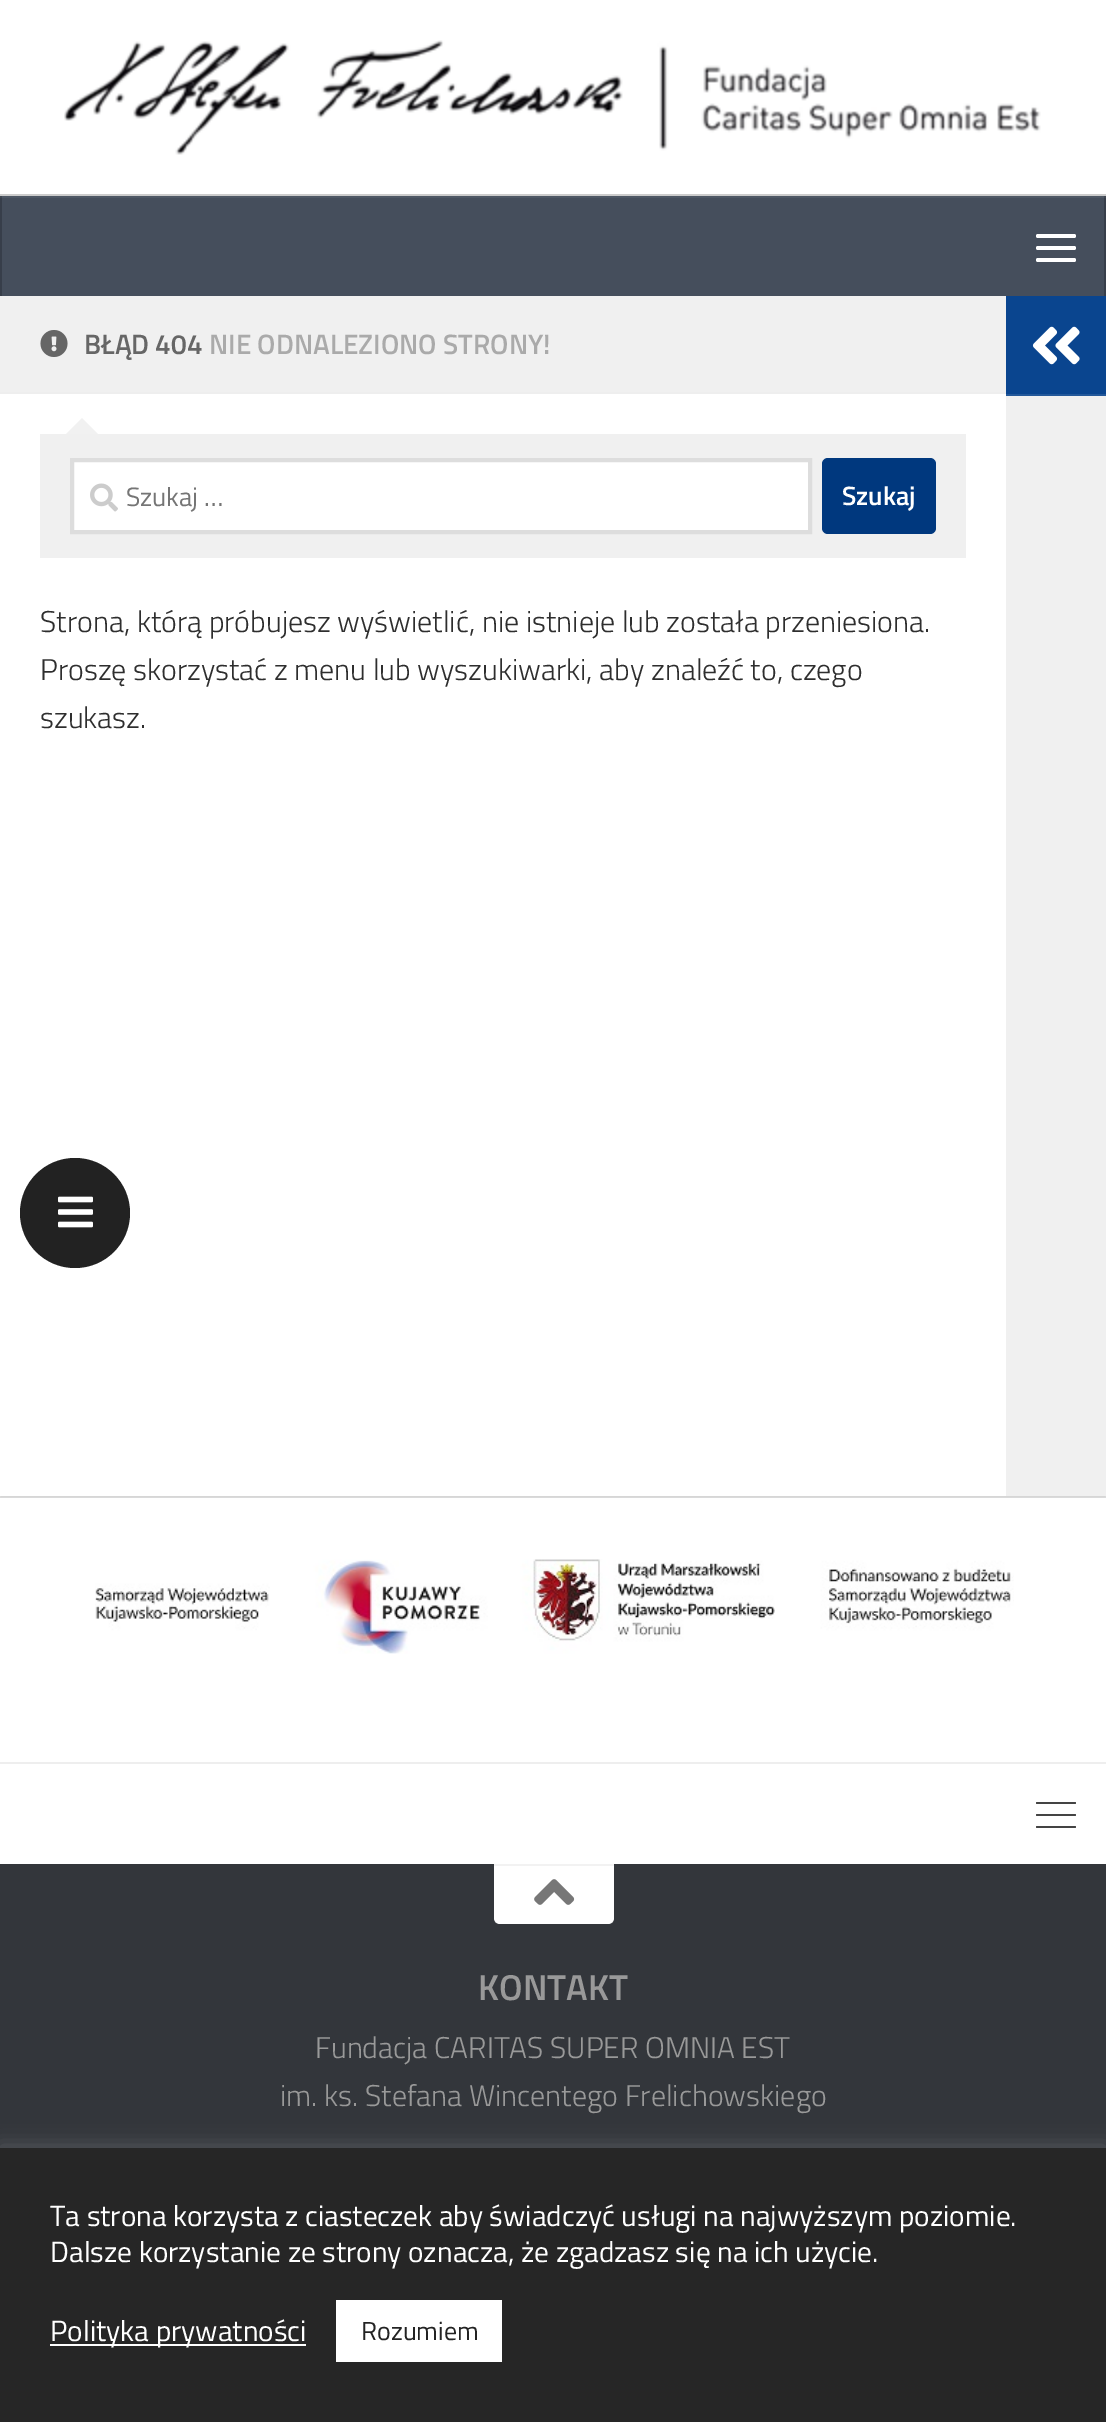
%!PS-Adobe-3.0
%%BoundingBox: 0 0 1106 2422
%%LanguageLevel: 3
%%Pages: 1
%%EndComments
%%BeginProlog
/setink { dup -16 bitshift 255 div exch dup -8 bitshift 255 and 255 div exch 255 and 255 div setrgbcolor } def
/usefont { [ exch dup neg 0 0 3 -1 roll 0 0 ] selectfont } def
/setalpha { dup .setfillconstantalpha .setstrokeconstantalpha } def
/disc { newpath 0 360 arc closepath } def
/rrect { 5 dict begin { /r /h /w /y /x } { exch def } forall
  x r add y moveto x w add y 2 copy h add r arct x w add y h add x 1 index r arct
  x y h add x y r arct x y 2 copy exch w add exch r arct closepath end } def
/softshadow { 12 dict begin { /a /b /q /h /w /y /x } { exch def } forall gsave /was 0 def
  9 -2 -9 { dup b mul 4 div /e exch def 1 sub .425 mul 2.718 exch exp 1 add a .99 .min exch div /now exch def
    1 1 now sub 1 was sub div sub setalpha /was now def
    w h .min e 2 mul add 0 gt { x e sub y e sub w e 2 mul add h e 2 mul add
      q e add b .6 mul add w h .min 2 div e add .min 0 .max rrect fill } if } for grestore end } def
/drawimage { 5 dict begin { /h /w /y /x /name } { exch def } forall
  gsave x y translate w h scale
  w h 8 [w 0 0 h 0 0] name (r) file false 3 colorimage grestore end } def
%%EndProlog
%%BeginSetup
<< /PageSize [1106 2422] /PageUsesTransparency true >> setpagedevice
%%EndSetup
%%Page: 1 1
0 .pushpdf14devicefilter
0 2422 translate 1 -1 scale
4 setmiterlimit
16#EAEAEA setink
0 0 1106 2422 rectfill
16#FFFFFF setink
0 0 1106 194 rectfill
(img1.raw) 64 40 977 115 drawimage
16#CCCCCC setink
0 194 1106 2 rectfill
16#000000 setink
0 298 1106 1200 0 1 0.1 softshadow
[
    [2 198 1102 98 16#454E5C]
    [0 196 1106 2 16#4E5764]
    [1104 196 2 100 16#373E4A]
    [1104 196 2 2 16#414853]
    [0 196 2 100 16#373E4A]
    [0 196 2 2 16#414853]
] { aload pop setink rectfill } forall
16#FFFFFF setink
1036 234 40 4 2 rrect fill
1036 246 40 4 2 rrect fill
1036 258 40 4 2 rrect fill
[
    [0 394 1006 1102 16#FFFFFF]
    [0 296 1006 96 16#F0F0F0]
    [0 392 1006 2 16#EEEEEE]
] { aload pop setink rectfill } forall
(img2.raw) 40 330 28 27 drawimage
/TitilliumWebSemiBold-SemiBold 28 usefont
16#666666 setink
84 354 moveto (BŁĄD 404) show
16#AAAAAA setink
209 354 moveto (NIE ODNALEZIONO STRONY!) show
16#F0F0F0 setink
40 434 926 124 rectfill
16#F1F1F1 setink
98 434 moveto 66 434 lineto 82 418 lineto closepath fill
16#FFFFFF setink
72 460 moveto 810 460 lineto 810 532 lineto 72 532 lineto closepath gsave fill grestore
16#DDDDDD setink
4 setlinewidth
stroke
(img3.raw) 90 483 28 29 drawimage
/TitilliumWeb-Regular 26.5 usefont
16#757575 setink
126 506 moveto (Szukaj …) show
16#00387E setink
822 458 114 76 6 rrect fill
/TitilliumWebSemiBold-SemiBold 26.5 usefont
16#FFFFFF setink
842 505 moveto (Szukaj) show
/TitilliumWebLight-Light 30 usefont
16#2E2E2E setink
[
    [(Strona, którą próbujesz wyświetlić, nie istnieje lub została przeniesiona.) 40 632]
    [(Proszę skorzystać z menu lub wyszukiwarki, aby znaleźć to, czego) 40 680]
    [(szukasz.) 40 728]
] { aload pop moveto show } forall
16#0A458F setink
1006 296 100 98 rectfill
16#23589A setink
1006 394 100 2 rectfill
(img4.raw) 1032 326 48 39 drawimage
16#F0F0F0 setink
1006 396 100 1100 rectfill
16#FFFFFF setink
0 1498 1106 366 rectfill
(img5.raw) 95 1559 919 95 drawimage
16#EEEEEE setink
0 1762 1106 2 rectfill
16#444444 setink
1036 1802 40 2 1 rrect fill
1036 1814 40 2 1 rrect fill
1036 1826 40 2 1 rrect fill
16#33363B setink
0 1864 1106 284 rectfill
16#FFFFFF setink
494 1864 moveto 614 1864 lineto 614 1918 lineto 614 1921.5 611.5 1924 608 1924 curveto 500 1924 lineto 496.5 1924 494 1921.5 494 1918 curveto closepath fill
16#F2F2F2 setink
494 1864 120 2 rectfill
(img6.raw) 534 1879 41 26 drawimage
/TitilliumWebSemiBold-SemiBold 36 usefont
16#999999 setink
478 2000 moveto (KONTAKT) show
/TitilliumWebLight-Light 30 usefont
315 2058 moveto (Fundacja CARITAS SUPER OMNIA EST) show
280 2106 moveto (im. ks. Stefana Wincentego Frelichowskiego) show
16#222222 setink
75 1213 55 disc fill
(img7.raw) 58 1196 35 32 drawimage
16#ACABAB setink
0 2146 1106 274 0 10 0.3 softshadow
16#262626 setink
0 2148 1106 274 rectfill
/TitilliumWeb-Regular 29.3 usefont
16#FFFFFF setink
50 2226 moveto (Ta strona korzysta z ciasteczek aby świadczyć usługi na najwyższym poziomie.) show
50 2262 moveto (Dalsze korzystanie ze strony oznacza, że zgadzasz się na ich użycie.) show
50 2344 256 2 rectfill
50 2341 moveto (Polityka prywatności) show
336 2300 166 62 rectfill
/TitilliumWeb-Regular 26 usefont
16#232323 setink
361 2340 moveto (Rozumiem) show
.poppdf14devicefilter showpage
%%EOF
